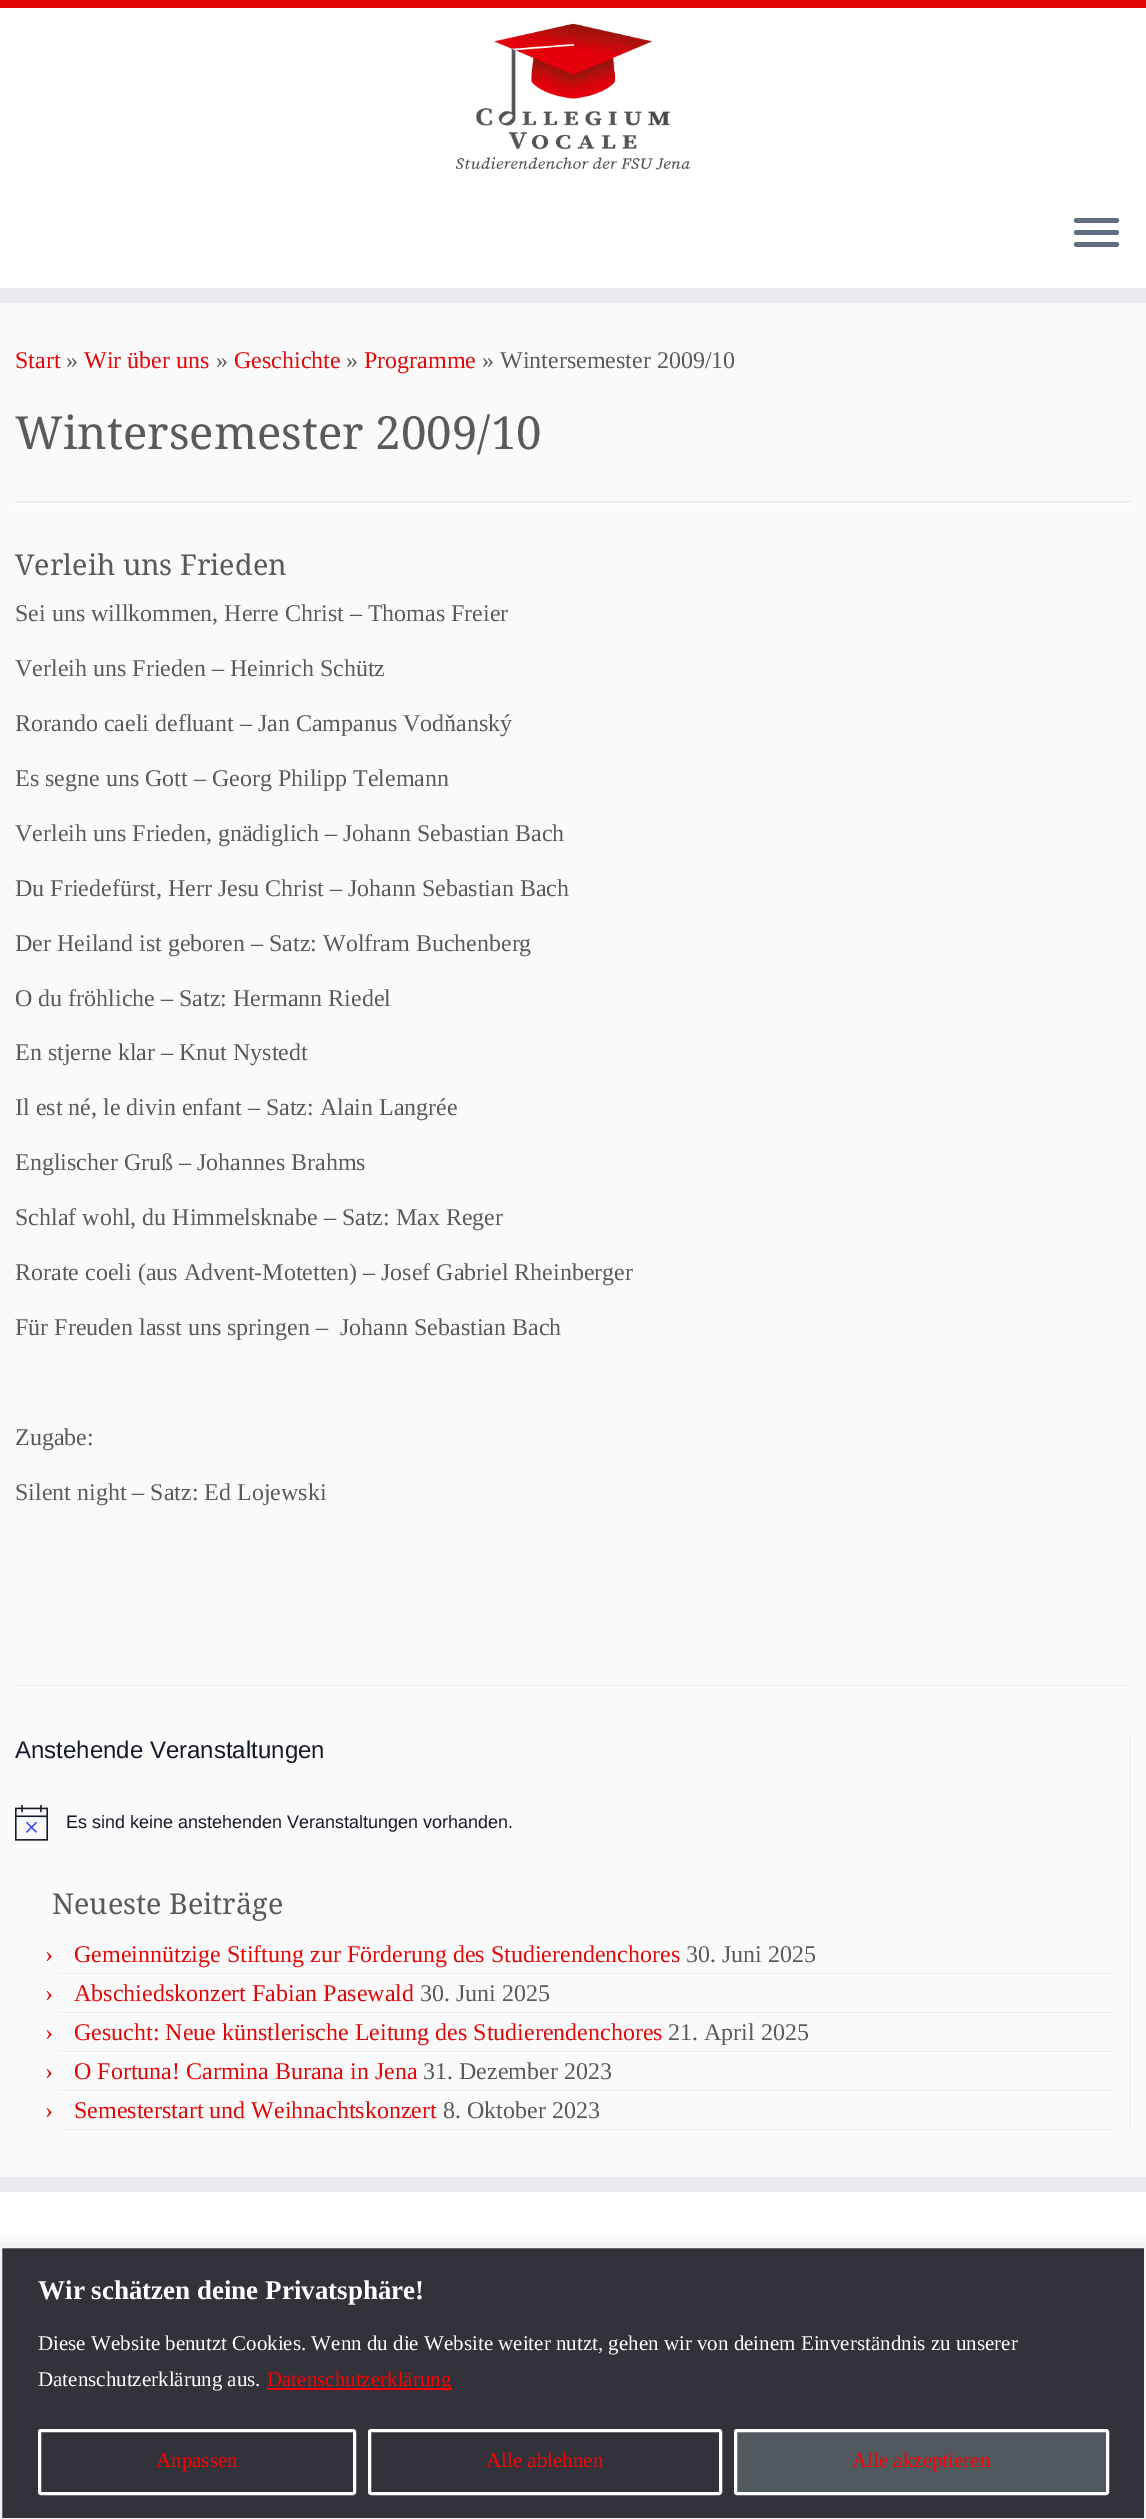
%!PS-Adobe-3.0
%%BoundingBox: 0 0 1146 2519
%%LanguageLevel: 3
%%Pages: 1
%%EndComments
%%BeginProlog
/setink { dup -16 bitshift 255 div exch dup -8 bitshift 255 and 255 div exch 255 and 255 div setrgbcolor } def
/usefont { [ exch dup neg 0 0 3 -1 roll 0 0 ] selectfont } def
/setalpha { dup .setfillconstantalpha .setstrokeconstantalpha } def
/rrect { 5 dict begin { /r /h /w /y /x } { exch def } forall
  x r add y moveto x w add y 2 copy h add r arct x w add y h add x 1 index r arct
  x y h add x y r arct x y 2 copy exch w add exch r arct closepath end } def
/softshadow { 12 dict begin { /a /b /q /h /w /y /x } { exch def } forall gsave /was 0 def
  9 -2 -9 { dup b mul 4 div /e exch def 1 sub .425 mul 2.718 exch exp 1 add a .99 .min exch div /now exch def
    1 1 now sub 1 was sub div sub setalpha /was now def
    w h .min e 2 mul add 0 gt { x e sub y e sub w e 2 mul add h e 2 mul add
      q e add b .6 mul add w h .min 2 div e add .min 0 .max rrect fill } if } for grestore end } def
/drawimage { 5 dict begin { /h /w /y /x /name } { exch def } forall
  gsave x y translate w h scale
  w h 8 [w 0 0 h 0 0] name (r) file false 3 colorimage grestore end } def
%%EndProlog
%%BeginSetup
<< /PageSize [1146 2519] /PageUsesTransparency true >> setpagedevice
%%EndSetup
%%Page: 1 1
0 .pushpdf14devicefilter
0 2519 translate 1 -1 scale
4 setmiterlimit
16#FAFAFA setink
0 0 1146 2519 rectfill
[
    [0 8 1146 280 16#FFFFFF]
    [0 0 1146 8 16#E10707]
    [0 288 1146 15 16#E9EAEE]
] { aload pop setink rectfill } forall
(img1.raw) 455 23 236 147 drawimage
16#5F6F81 setink
1074 218 45 5 2.5 rrect fill
1074 230 45 5 2.5 rrect fill
1074 242 45 5 2.5 rrect fill
/LiberationSerif-Regular 24 usefont
16#E10707 setink
15 368 moveto (Start) show
16#5A5A5A setink
66 368 moveto (») show
16#E10707 setink
84 368 moveto (Wir über uns) show
16#5A5A5A setink
216 368 moveto (») show
16#E10707 setink
234 368 moveto (Geschichte) show
16#5A5A5A setink
346 368 moveto (») show
16#E10707 setink
364 368 moveto (Programme) show
16#5A5A5A setink
482 368 moveto (» Wintersemester 2009/10) show
/NotoSerif-Regular 45.6 usefont
15 449 moveto (Wintersemester 2009/10) show
16#EEEEEE setink
15 501 1116 2 rectfill
16#FFFFFF setink
15 503 1116 2 rectfill
/NotoSerif-Regular 28.75 usefont
16#5A5A5A setink
15 575 moveto (Verleih uns Frieden) show
/LiberationSerif-Regular 24 usefont
[
    [(Sei uns willkommen, Herre Christ – Thomas Freier) 15 621]
    [(Verleih uns Frieden – Heinrich Schütz) 15 676]
    [(Rorando caeli defluant – Jan Campanus Vodňanský) 15 731]
    [(Es segne uns Gott – Georg Philipp Telemann) 15 786]
    [(Verleih uns Frieden, gnädiglich – Johann Sebastian Bach) 15 841]
    [(Du Friedefürst, Herr Jesu Christ – Johann Sebastian Bach) 15 896]
    [(Der Heiland ist geboren – Satz: Wolfram Buchenberg) 15 951]
    [(O du fröhliche – Satz: Hermann Riedel) 15 1006]
    [(En stjerne klar – Knut Nystedt) 15 1060]
    [(Il est né, le divin enfant – Satz: Alain Langrée) 15 1115]
    [(Englischer Gruß – Johannes Brahms) 15 1170]
    [(Schlaf wohl, du Himmelsknabe – Satz: Max Reger) 15 1225]
    [(Rorate coeli \(aus Advent-Motetten\) – Josef Gabriel Rheinberger) 15 1280]
    [(Für Freuden lasst uns springen –) 15 1335]
    [(Johann Sebastian Bach) 340 1335]
    [(Zugabe:) 15 1445]
    [(Silent night – Satz: Ed Lojewski) 15 1500]
] { aload pop moveto show } forall
[
    [15 1685 1116 1 16#EEEEEE]
    [15 1686 1116 2 16#FFFFFF]
    [1130 1733 1 397 16#EEEEEE]
] { aload pop setink rectfill } forall
/LiberationSans-Regular 24 usefont
16#141827 setink
15 1758 moveto (Anstehende Veranstaltungen) show
(img2.raw) 15 1805 33 36 drawimage
/LiberationSans-Regular 18 usefont
66 1828 moveto (Es sind keine anstehenden Veranstaltungen vorhanden.) show
16#FFFFFF setink
1131 1733 2 397 rectfill
/NotoSerif-Regular 28.75 usefont
16#5A5A5A setink
52 1914 moveto (Neueste Beiträge) show
16#EEEEEE setink
60 1973 1055 1 rectfill
/LiberationSerif-Regular 24 usefont
16#E10707 setink
45 1962 moveto (›) show
74 1962 moveto (Gemeinnützige Stiftung zur Förderung des Studierendenchores) show
16#5A5A5A setink
686 1962 moveto (30. Juni 2025) show
16#FFFFFF setink
60 1974 1055 2 rectfill
16#EEEEEE setink
60 2012 1055 1 rectfill
16#E10707 setink
45 2001 moveto (›) show
74 2001 moveto (Abschiedskonzert Fabian Pasewald) show
16#5A5A5A setink
420 2001 moveto (30. Juni 2025) show
16#FFFFFF setink
60 2013 1055 2 rectfill
16#EEEEEE setink
60 2051 1055 1 rectfill
16#E10707 setink
45 2040 moveto (›) show
74 2040 moveto (Gesucht: Neue künstlerische Leitung des Studierendenchores) show
16#5A5A5A setink
668 2040 moveto (21. April 2025) show
16#FFFFFF setink
60 2052 1055 2 rectfill
16#EEEEEE setink
60 2090 1055 1 rectfill
16#E10707 setink
45 2079 moveto (›) show
74 2079 moveto (O Fortuna! Carmina Burana in Jena) show
16#5A5A5A setink
423 2079 moveto (31. Dezember 2023) show
16#FFFFFF setink
60 2091 1055 2 rectfill
16#EEEEEE setink
60 2129 1055 1 rectfill
16#E10707 setink
45 2118 moveto (›) show
74 2118 moveto (Semesterstart und Weihnachtskonzert) show
16#5A5A5A setink
443 2118 moveto (8. Oktober 2023) show
[
    [60 2130 1055 2 16#FFFFFF]
    [0 2177 1146 15 16#E9EAEE]
    [0 2192 1146 54 16#FFFFFF]
] { aload pop setink rectfill } forall
16#ACABAB setink
0 2244 1146 275 0 7.5 0.3 softshadow
16#32323A setink
1 2247 moveto 1145 2247 lineto 1145 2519 lineto 1 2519 lineto closepath gsave fill grestore
16#F4F4F4 setink
2 setlinewidth
stroke
/LiberationSerif-Bold 27 usefont
16#FFFFFF setink
38 2299 moveto (Wir schätzen deine Privatsphäre!) show
/LiberationSerif-Regular 21 usefont
38 2350 moveto (Diese Website benutzt Cookies. Wenn du die Website weiter nutzt, gehen wir von deinem Einverständnis zu unserer) show
38 2386 moveto (Datenschutzerklärung aus.) show
16#FF0000 setink
267 2388 185 2 rectfill
267 2386 moveto (Datenschutzerklärung) show
16#FFFFFF setink
3 setlinewidth
39.5 2430.5 315 63 1.5 rrect stroke
16#FF0000 setink
156 2467 moveto (Anpassen) show
16#FFFFFF setink
369.5 2430.5 351 63 1.5 rrect stroke
16#FF0000 setink
486 2467 moveto (Alle ablehnen) show
16#51595F setink
735.5 2430.5 372 63 1.5 rrect gsave fill grestore
16#FFFFFF setink
stroke
16#FF0000 setink
852 2467 moveto (Alle akzeptieren) show
.poppdf14devicefilter showpage
%%EOF
